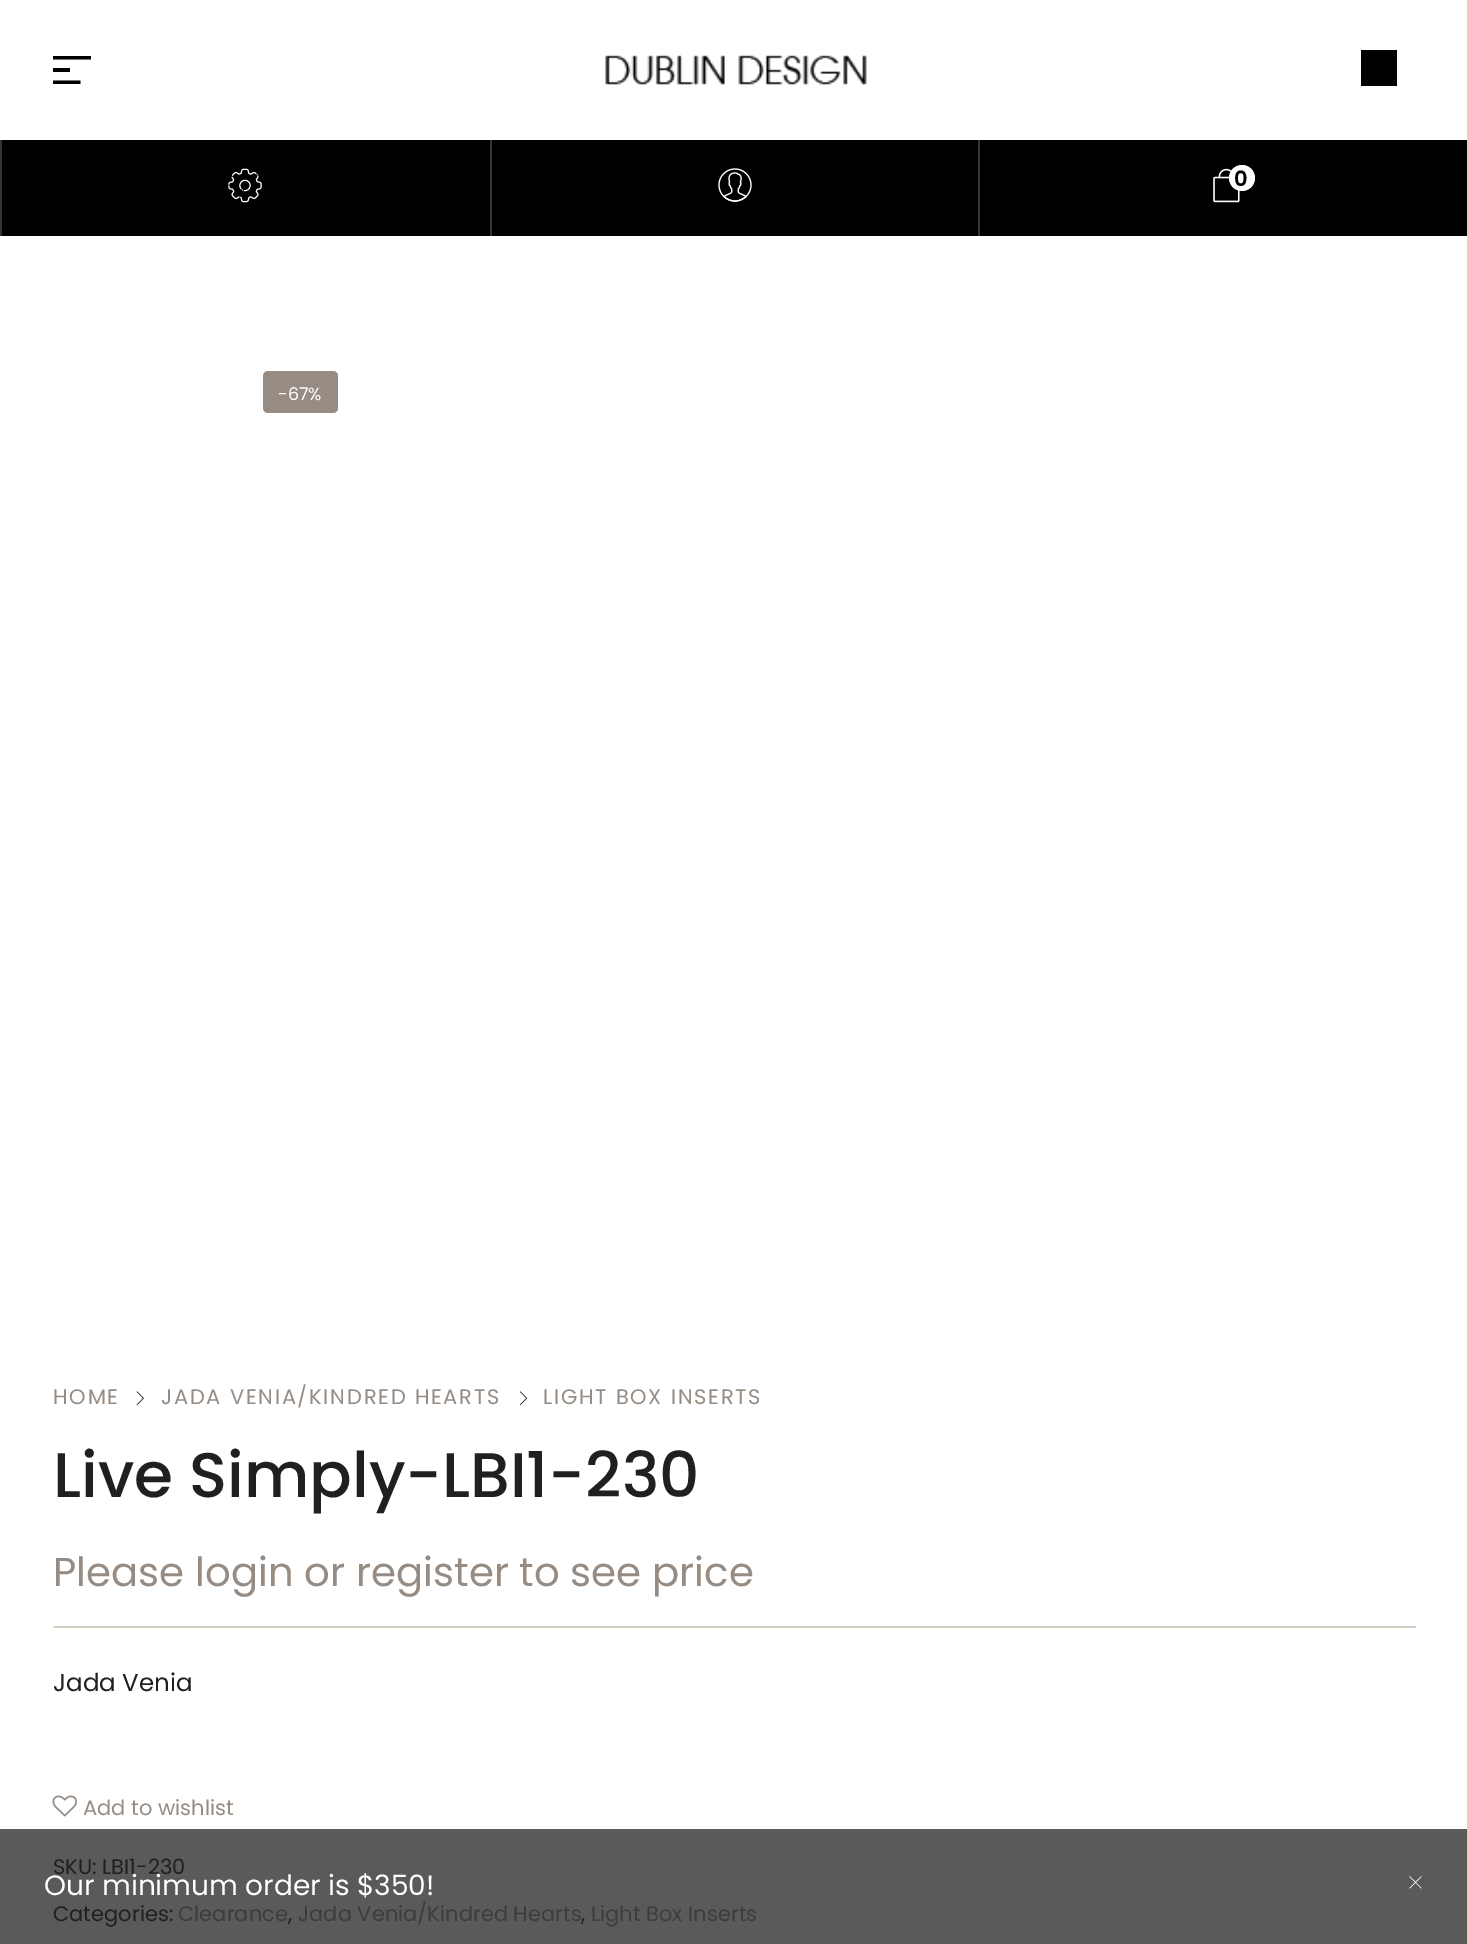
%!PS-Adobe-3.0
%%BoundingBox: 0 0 1467 1944
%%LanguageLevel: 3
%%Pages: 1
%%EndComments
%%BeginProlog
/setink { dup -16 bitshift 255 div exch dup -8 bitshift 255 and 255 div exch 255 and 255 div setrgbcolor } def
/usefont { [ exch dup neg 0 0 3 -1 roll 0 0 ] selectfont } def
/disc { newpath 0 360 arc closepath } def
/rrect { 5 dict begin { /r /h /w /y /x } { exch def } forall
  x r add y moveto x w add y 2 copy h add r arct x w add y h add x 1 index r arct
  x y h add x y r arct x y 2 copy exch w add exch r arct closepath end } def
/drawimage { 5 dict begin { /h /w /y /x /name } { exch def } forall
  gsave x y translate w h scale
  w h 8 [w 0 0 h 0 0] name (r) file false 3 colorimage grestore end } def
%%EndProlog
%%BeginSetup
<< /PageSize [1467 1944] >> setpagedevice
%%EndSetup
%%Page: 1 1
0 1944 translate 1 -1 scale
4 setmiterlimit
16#FFFFFF setink
0 0 1467 1944 rectfill
16#5A5A5A setink
0 1829 1467 115 rectfill
gsave
53 53 38 35 rectclip
16#000000 setink
52.5 56 moveto 91 56 lineto 91 59.5 lineto 52.5 59.5 lineto closepath 52.5 68 moveto 70 68 lineto 70 72 lineto 52.5 72 lineto closepath 52.5 80.5 moveto 80.5 80.5 lineto 80.5 84 lineto 52.5 84 lineto closepath fill
grestore
(img1.raw) 605 55 262 30 drawimage
[
    [1361 50 36 36 16#000000]
    [2 140 1465 96 16#000000]
    [0 140 2 96 16#333333]
] { aload pop setink rectfill } forall
(img2.raw) 228 168 34 35 drawimage
490 140 2 96 rectfill
(img3.raw) 718 168 34 34 drawimage
978 140 2 96 rectfill
(img4.raw) 1213 168 27 35 drawimage
16#FFFFFF setink
1242 178 13 disc fill
/Poppins-SemiBold 21 usefont
16#000000 setink
1234 186 moveto (0) show
16#968C83 setink
263 371 75 42 5 rrect fill
/Poppins-Regular 17.5 usefont
16#FFFFFF setink
278 400 moveto (-67%) show
/Poppins-Regular 21 usefont
16#968C83 setink
53 1404 moveto 1.75 0 (HOME) ashow
(img5.raw) 136 1391 8 15 drawimage
161 1404 moveto 1.75 0 (JADA VENIA/KINDRED HEARTS) ashow
(img6.raw) 519 1391 9 15 drawimage
543 1404 moveto 1.75 0 (LIGHT BOX INSERTS) ashow
/Poppins-Medium 63 usefont
16#202020 setink
53 1497 moveto (Live Simply-LBI1-230) show
16#D6D2C4 setink
53 1626 1363 2 rectfill
/Poppins-Regular 40.25 usefont
16#968C83 setink
53 1586 moveto (Please login or register to see price) show
/Poppins-Regular 24.5 usefont
16#202020 setink
53 1691 moveto (Jada Venia) show
(img7.raw) 52 1795 25 22 drawimage
/Poppins-Regular 21 usefont
16#968C83 setink
83 1815 moveto (Add to wishlist) show
16#202020 setink
53 1874 moveto (SKU: LBI1-230) show
53 1921 moveto (Categories:) show
16#3F3C3A setink
178 1921 moveto (Clearance) show
16#202020 setink
288 1921 moveto (,) show
16#3F3C3A setink
298 1921 moveto (Jada Venia/Kindred Hearts) show
16#202020 setink
581 1921 moveto (,) show
16#3F3C3A setink
591 1921 moveto (Light Box Inserts) show
/Poppins-Regular 28 usefont
16#FFFFFF setink
44 1895 moveto (Our minimum order is $350!) show
(img8.raw) 1409 1876 13 13 drawimage
showpage
%%EOF
